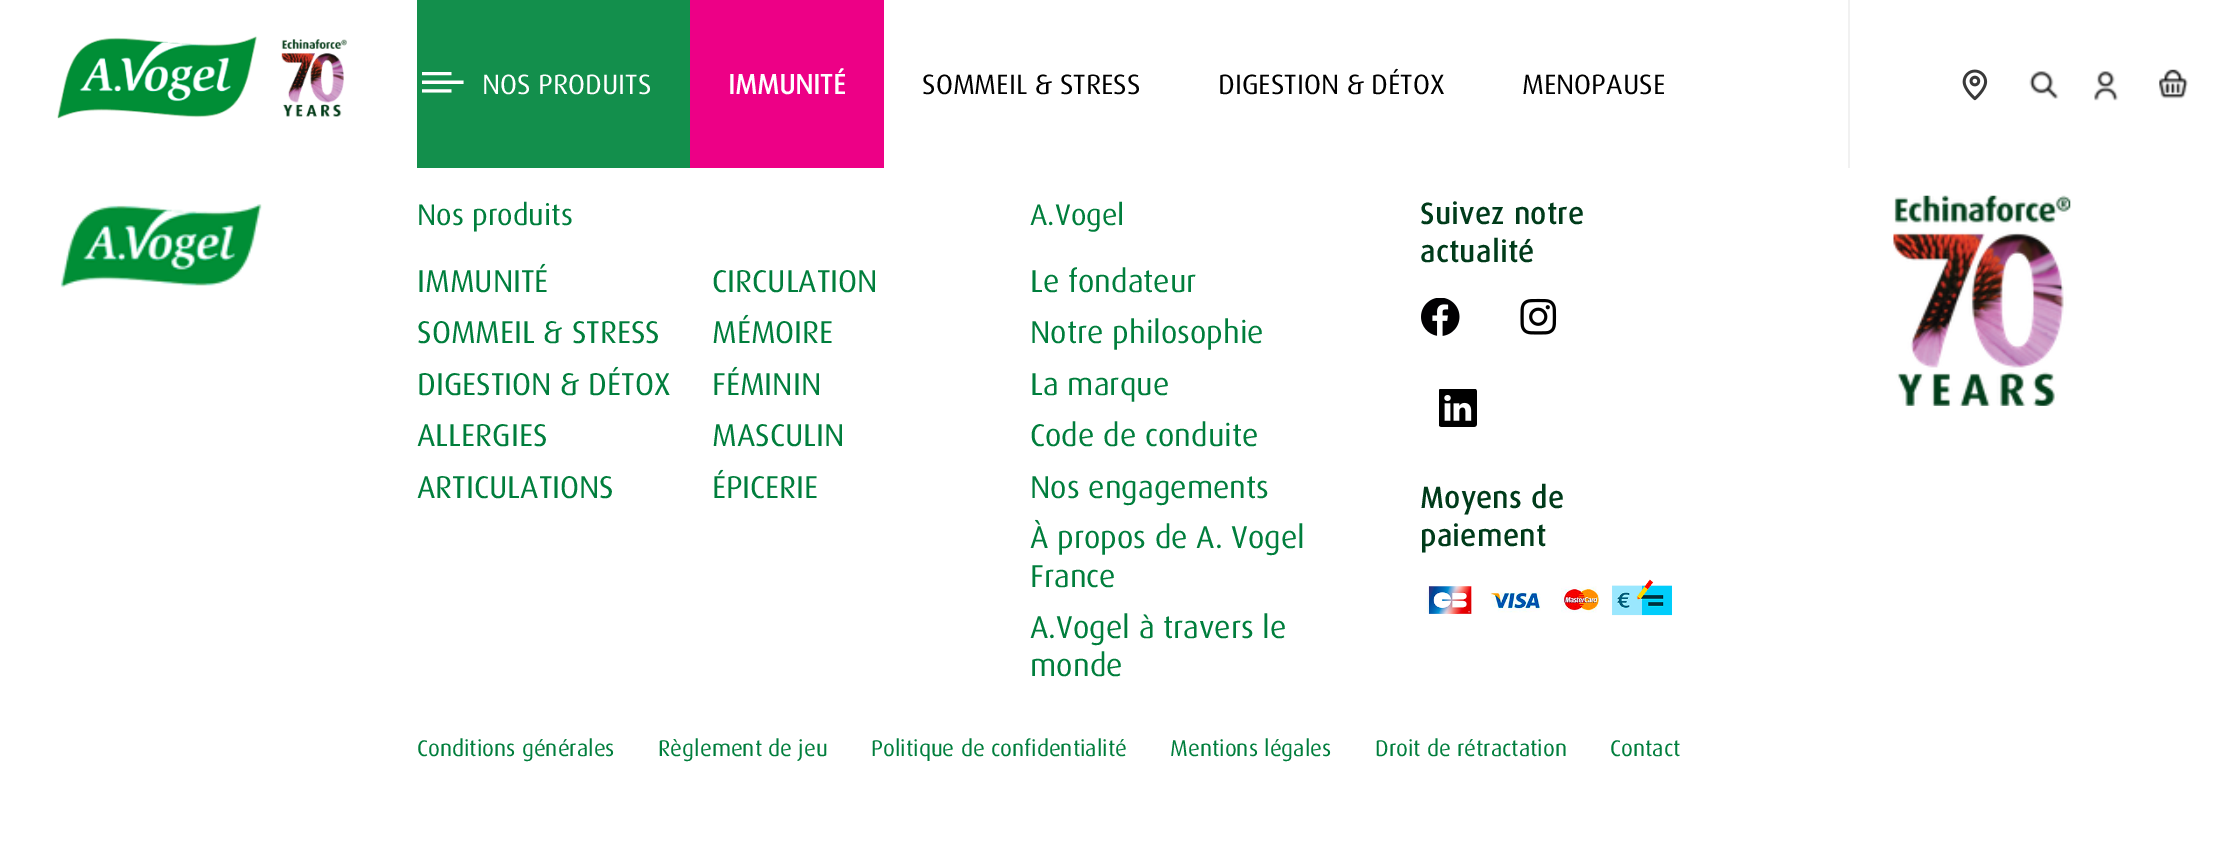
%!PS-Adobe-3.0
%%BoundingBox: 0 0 2240 846
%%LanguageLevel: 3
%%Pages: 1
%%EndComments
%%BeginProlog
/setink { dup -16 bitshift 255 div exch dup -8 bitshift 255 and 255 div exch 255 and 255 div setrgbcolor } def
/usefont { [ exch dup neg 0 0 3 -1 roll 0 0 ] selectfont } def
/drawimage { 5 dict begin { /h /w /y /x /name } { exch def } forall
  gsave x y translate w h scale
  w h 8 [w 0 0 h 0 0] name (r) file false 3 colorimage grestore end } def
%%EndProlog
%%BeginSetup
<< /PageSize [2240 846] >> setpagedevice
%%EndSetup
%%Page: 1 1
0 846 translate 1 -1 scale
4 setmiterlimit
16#FFFFFF setink
0 0 2240 846 rectfill
(img1.raw) 57 36 290 83 drawimage
16#F1F1F1 setink
1848 0 2 168 rectfill
16#138F4C setink
417 0 273 168 rectfill
(img2.raw) 422 72 42 21 drawimage
/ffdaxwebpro-Regular 28 usefont
16#FFFFFF setink
482 94 moveto (NOS PRODUITS) show
16#ED0086 setink
690 0 194 168 rectfill
/ffdaxwebpro-Bold 28 usefont
16#FFFFFF setink
728 94 moveto (IMMUNITÉ) show
/ffdaxwebpro-Regular 28 usefont
16#000000 setink
[
    [(SOMMEIL & STRESS) 922 94]
    [(DIGESTION & DÉTOX) 1218 94]
    [(MENOPAUSE) 1522 94]
] { aload pop moveto show } forall
(img3.raw) 1962 69 26 32 drawimage
(img4.raw) 2029 71 30 28 drawimage
(img5.raw) 2094 71 25 30 drawimage
(img6.raw) 2159 69 29 30 drawimage
(img7.raw) 60 204 202 84 drawimage
/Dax-Regular 29.75 usefont
16#007E3C setink
417 225 moveto (Nos produits) show
/Dax-Regular 31.5 usefont
[
    [(IMMUNITÉ) 417 292]
    [(CIRCULATION) 712 292]
    [(SOMMEIL & STRESS) 417 343]
    [(MÉMOIRE) 712 343]
    [(DIGESTION & DÉTOX) 417 395]
    [(FÉMININ) 712 395]
    [(ALLERGIES) 417 446]
    [(MASCULIN) 712 446]
    [(ARTICULATIONS) 417 498]
    [(ÉPICERIE) 712 498]
] { aload pop moveto show } forall
/Dax-Regular 29.75 usefont
1030 225 moveto (A.Vogel) show
/Dax-Regular 31.5 usefont
[
    [(Le fondateur) 1030 292]
    [(Notre philosophie) 1030 343]
    [(La marque) 1030 395]
    [(Code de conduite) 1030 446]
    [(Nos engagements) 1030 498]
    [(À propos de A. Vogel) 1030 548]
    [(France) 1030 587]
    [(A.Vogel à travers le) 1030 638]
    [(monde) 1030 676]
] { aload pop moveto show } forall
/Dax-Bold 29.75 usefont
16#003B1A setink
1420 224 moveto 0.9 0 (Suivez notre) ashow
1420 262 moveto 0.9 0 (actualité) ashow
(img8.raw) 1421 298 39 38 drawimage
(img9.raw) 1520 298 37 37 drawimage
(img10.raw) 1439 389 38 38 drawimage
1420 508 moveto 0.9 0 (Moyens de) ashow
1420 546 moveto 0.9 0 (paiement) ashow
(img11.raw) 1424 579 248 37 drawimage
(img12.raw) 1893 195 178 211 drawimage
/Dax-Regular 22.75 usefont
16#007E3C setink
[
    [(Conditions générales) 417 756]
    [(Règlement de jeu) 658 756]
    [(Politique de confidentialité) 871 756]
    [(Mentions légales) 1170 756]
    [(Droit de rétractation) 1375 756]
    [(Contact) 1610 756]
] { aload pop moveto show } forall
showpage
%%EOF
